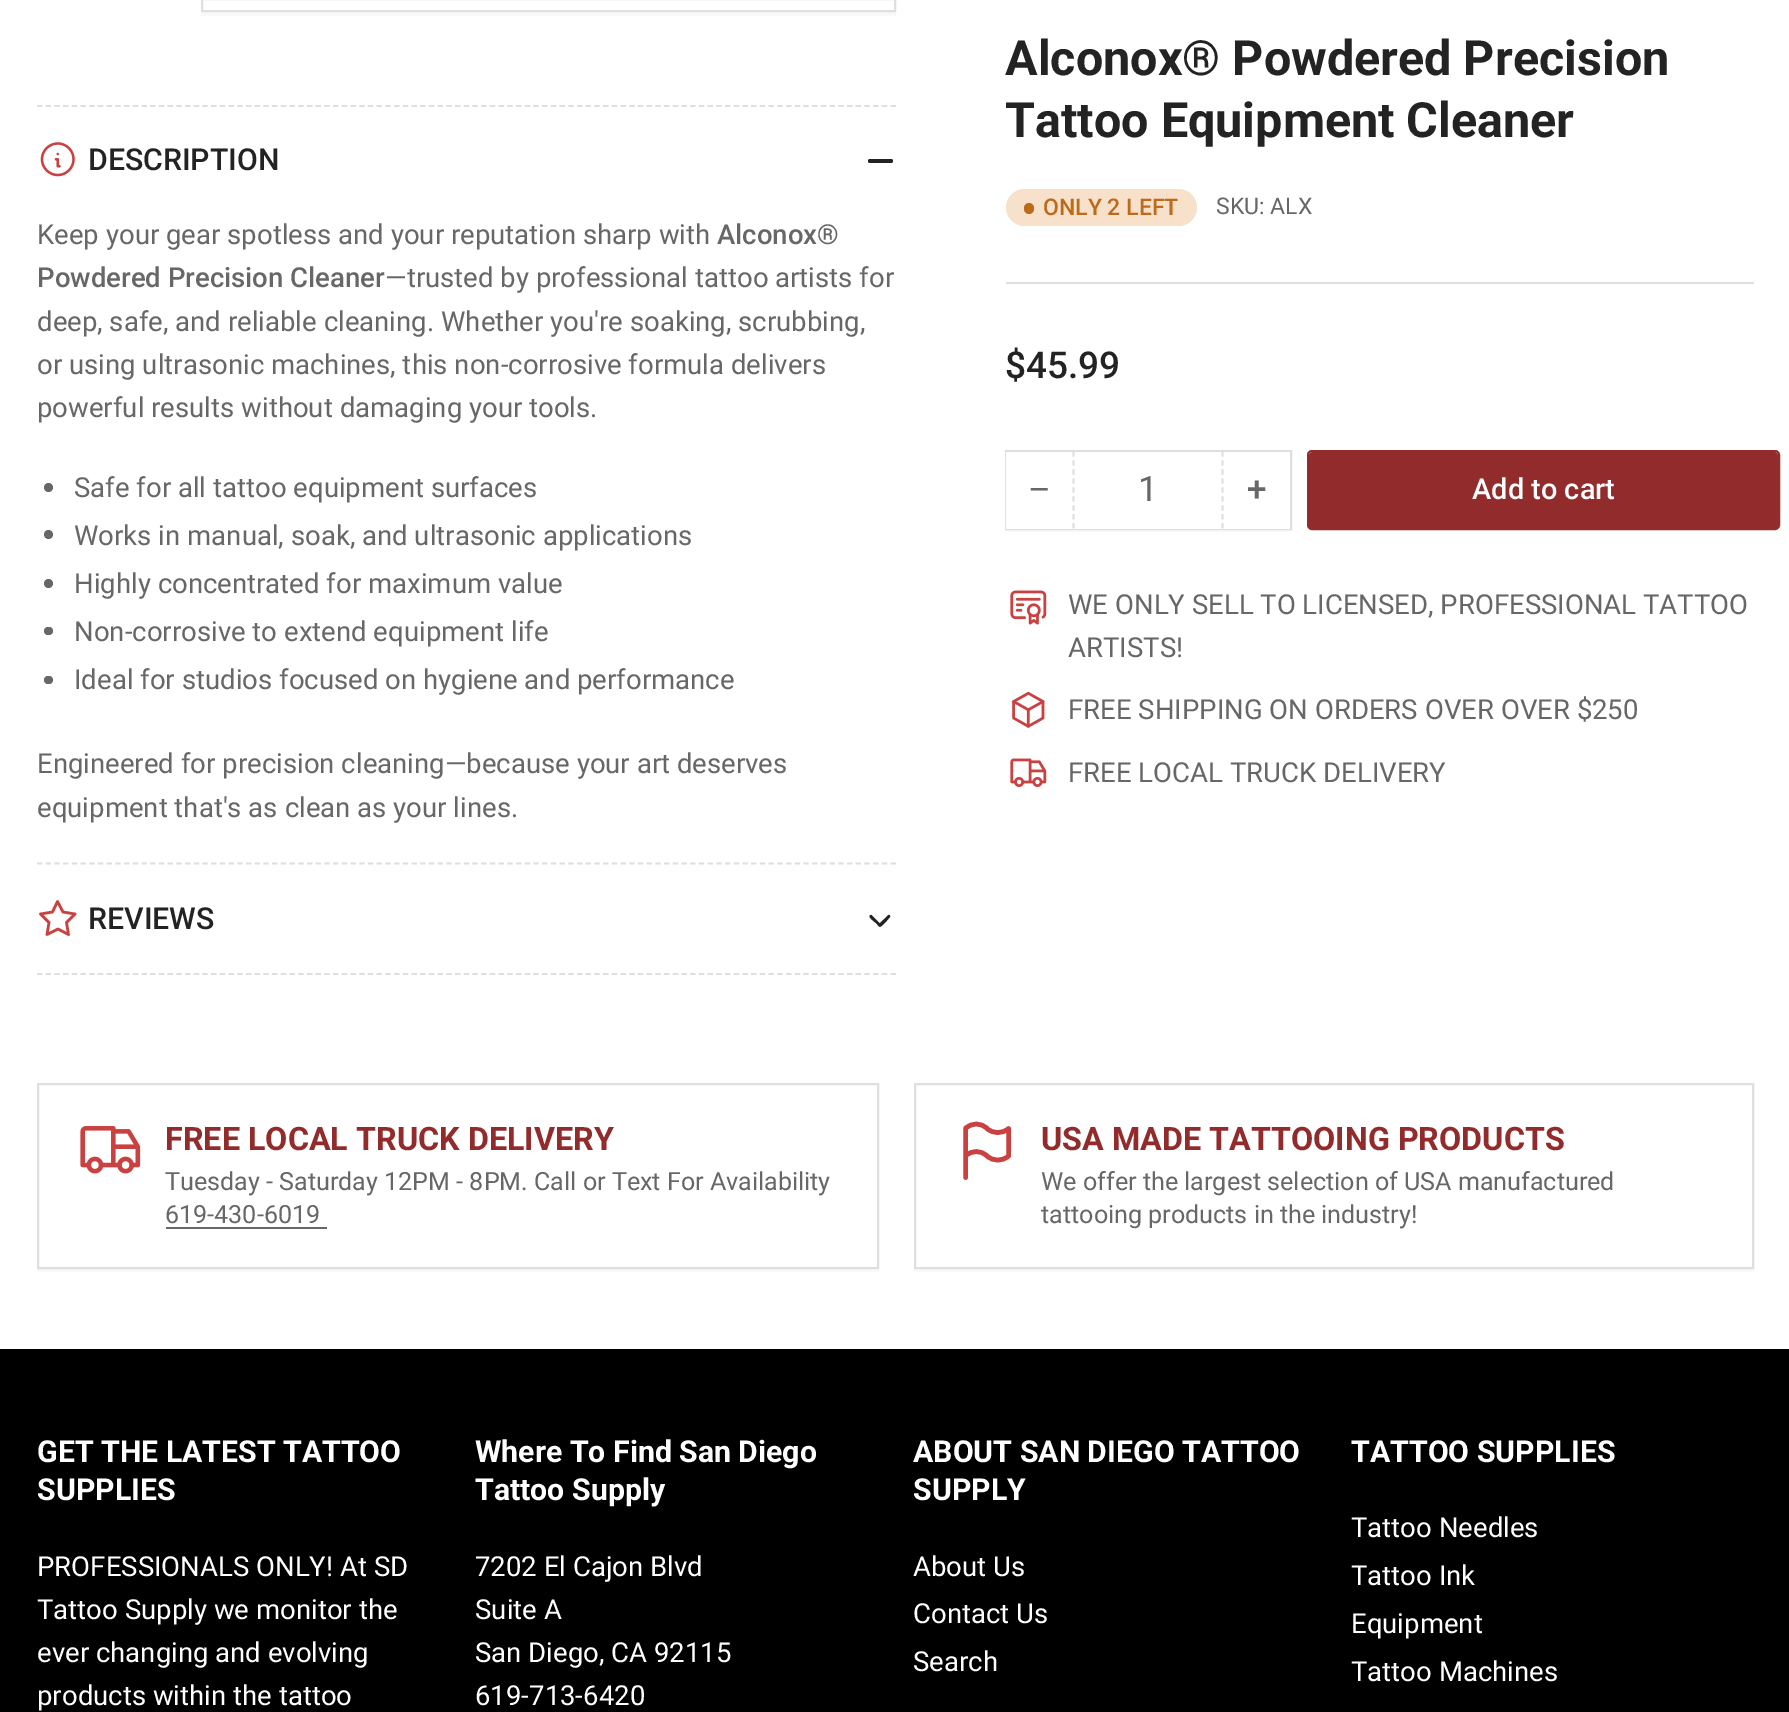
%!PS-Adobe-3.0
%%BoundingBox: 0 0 1789 1712
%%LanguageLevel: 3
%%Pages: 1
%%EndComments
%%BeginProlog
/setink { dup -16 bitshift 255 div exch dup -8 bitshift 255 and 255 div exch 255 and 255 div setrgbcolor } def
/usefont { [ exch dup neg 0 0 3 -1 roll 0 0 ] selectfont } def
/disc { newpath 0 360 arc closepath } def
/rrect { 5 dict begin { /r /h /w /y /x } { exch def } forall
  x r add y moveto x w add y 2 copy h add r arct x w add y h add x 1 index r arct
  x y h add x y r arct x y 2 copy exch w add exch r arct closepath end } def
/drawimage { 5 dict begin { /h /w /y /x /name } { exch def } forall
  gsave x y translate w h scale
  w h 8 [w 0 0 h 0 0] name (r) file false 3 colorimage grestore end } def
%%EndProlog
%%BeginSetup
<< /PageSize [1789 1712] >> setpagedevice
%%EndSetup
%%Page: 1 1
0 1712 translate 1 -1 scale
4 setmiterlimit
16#FFFFFF setink
0 0 1789 1712 rectfill
16#F9F9F9 setink
201 -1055 moveto 201 16 lineto 896 16 lineto 896 12 lineto 201 12 lineto closepath fill
16#DFDFDF setink
2 setlinewidth
202 -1 693 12 rectstroke
1.8 setlinewidth
[5.25 3.46] 0 setdash
37 106 moveto 896 106 lineto stroke
37 863.5 moveto 896 863.5 lineto stroke
(img1.raw) 40 142 35 35 drawimage
/Roboto-Medium 30.25 usefont
16#232323 setink
88 170 moveto (DESCRIPTION) show
868 159 16 4 2 rrect fill
877 159 16 4 2 rrect fill
/Roboto-Regular 27.55 usefont
16#676767 setink
37 244 moveto (Keep your gear spotless and your reputation sharp with) show
/Roboto-Medium 27.55 usefont
717 244 moveto (Alconox®) show
37 287 moveto (Powdered Precision Cleaner) show
/Roboto-Regular 27.55 usefont
[
    [(—trusted by professional tattoo artists for) 385 287]
    [(deep, safe, and reliable cleaning. Whether you're soaking, scrubbing,) 37 331]
    [(or using ultrasonic machines, this non-corrosive formula delivers) 37 374]
    [(powerful results without damaging your tools.) 37 417]
] { aload pop moveto show } forall
48.5 487.5 4.5 disc fill
74 497 moveto (Safe for all tattoo equipment surfaces) show
48.5 534.5 4.5 disc fill
74 545 moveto (Works in manual, soak, and ultrasonic applications) show
48.5 583.5 4.5 disc fill
74 593 moveto (Highly concentrated for maximum value) show
44 627 9 8 4 rrect fill
74 641 moveto (Non-corrosive to extend equipment life) show
44 676 9 8 4 rrect fill
[
    [(Ideal for studios focused on hygiene and performance) 74 689]
    [(Engineered for precision cleaning—because your art deserves) 37 773]
    [(equipment that's as clean as your lines.) 37 817]
] { aload pop moveto show } forall
16#DFDFDF setink
37 974 moveto 896 974 lineto stroke
16#CA4141 setink
2.6 setlinewidth
1 setlinecap
1 setlinejoin
[] 0 setdash
58 929 moveto 47 934.5 lineto 49 922.5 lineto 40.5 914 lineto 52.5 912 lineto 57.5 901.5 lineto 63 912 lineto 75 914 lineto 66.5 922.5 lineto 68.5 934.5 lineto closepath stroke
/Roboto-Medium 30.25 usefont
16#232323 setink
88 929 moveto (REVIEWS) show
872 915.5 moveto 881 924.5 lineto 881.5 925.5 880.5 927 879 926.5 curveto 876 923 lineto 874.5 922 869.5 918 869.5 916.5 curveto 869.5 915 871.5 914.5 872 915.5 curveto closepath fill
879 924 moveto 888.5 915 lineto 889.5 914.5 890.5 916 890 917 curveto 887 920.5 lineto 886 921.5 881.5 926.5 880.5 926.5 curveto 879 926.5 878.5 925 879 924 curveto closepath fill
16#DFDFDF setink
1006 282 748 2 rectfill
/Roboto-Bold 48.5 usefont
16#232323 setink
1005 75 moveto (Alconox® Powdered Precision) show
1005 137 moveto (Tattoo Equipment Cleaner) show
16#F8E1CB setink
1006 189 191 37 18.5 rrect fill
16#BD6B1B setink
1024 203 10 11 5 rrect fill
/Roboto-Medium 23 usefont
1043 215 moveto (ONLY 2 LEFT) show
/Roboto-Regular 23 usefont
16#676767 setink
1216 214 moveto (SKU: ALX) show
/Roboto-Medium 37 usefont
16#232323 setink
1005 378 moveto ($45.99) show
16#F9F9F9 setink
1006 455 moveto 1006 532 lineto 1290 532 lineto 1290 455 lineto 1290 528 lineto 1006 528 lineto closepath fill
16#DFDFDF setink
2 setlinewidth
0 setlinecap
0 setlinejoin
1006 451 285 78 rectstroke
16#FFFFFF setink
1006 452 284 77 rectfill
/LiberationSans-Regular 35 usefont
16#676767 setink
1029 501 moveto (−) show
16#DFDFDF setink
1.8 setlinewidth
[5.25 3.71] 0 setdash
1222.5 451.5 moveto 1222.5 528.5 lineto stroke
1073.5 451.5 moveto 1073.5 528.5 lineto stroke
/Roboto-Regular 35 usefont
16#676767 setink
1138 501 moveto (1) show
/Roboto-Medium 35 usefont
1247 501 moveto (+) show
16#922C2C setink
2 setlinewidth
[] 0 setdash
1308 451 471 78 4 rrect stroke
1309 452 469 77 4 rrect fill
/Roboto-Medium 29 usefont
16#FFFFFF setink
1472 499 moveto (Add to cart) show
(img2.raw) 1010 590 37 35 drawimage
/Roboto-Regular 27.55 usefont
16#676767 setink
1068 614 moveto (WE ONLY SELL TO LICENSED, PROFESSIONAL TATTOO) show
1068 657 moveto (ARTISTS!) show
(img3.raw) 1012 691 33 37 drawimage
1068 719 moveto (FREE SHIPPING ON ORDERS OVER OVER $250) show
(img4.raw) 1010 758 37 29 drawimage
1068 782 moveto (FREE LOCAL TRUCK DELIVERY) show
16#F9F9F9 setink
37 1269 moveto 37 1272 lineto 879 1272 lineto 879 1087 lineto 878 1087 lineto 878 1269 lineto closepath fill
16#DFDFDF setink
38 1084 840 184 rectstroke
(img5.raw) 80 1126 61 48 drawimage
/Roboto-Bold 32.3 usefont
16#922C2C setink
165 1150 moveto (FREE LOCAL TRUCK DELIVERY) show
/Roboto-Regular 25.1 usefont
16#676767 setink
165 1190 moveto (Tuesday - Saturday 12PM - 8PM. Call or Text For Availability) show
165 1223 moveto (619-430-6019) show
166 1227 161 2 rectfill
16#F9F9F9 setink
914 1269 moveto 914 1272 lineto 1754 1272 lineto 1754 1087 lineto 1754 1269 lineto closepath fill
16#DFDFDF setink
915 1084 838 184 rectstroke
16#CA4141 setink
4.6 setlinewidth
1 setlinecap
1 setlinejoin
965.5 1128.5 moveto 971.5 1122.5 981 1122.5 987 1128.5 curveto 993 1134 1002.5 1134 1008.5 1128.5 curveto 1008.5 1156 lineto 1002.5 1161.5 993 1161.5 987 1156 curveto 981 1150 971.5 1150 965.5 1156 curveto closepath 965.5 1177.5 moveto 965.5 1156 lineto stroke
/Roboto-Bold 32.3 usefont
16#922C2C setink
1041 1150 moveto (USA MADE TATTOOING PRODUCTS) show
/Roboto-Regular 25.1 usefont
16#676767 setink
1041 1190 moveto (We offer the largest selection of USA manufactured) show
1041 1223 moveto (tattooing products in the industry!) show
16#000000 setink
0 1349 1789 363 rectfill
/Roboto-Bold 30.25 usefont
16#FFFFFF setink
37 1462 moveto (GET THE LATEST TATTOO) show
37 1500 moveto (SUPPLIES) show
/Roboto-Regular 27.55 usefont
[
    [(PROFESSIONALS ONLY! At SD) 37 1576]
    [(Tattoo Supply we monitor the) 37 1619]
    [(ever changing and evolving) 37 1662]
    [(products within the tattoo) 37 1705]
] { aload pop moveto show } forall
/Roboto-Bold 30.25 usefont
475 1462 moveto (Where To Find San Diego) show
475 1500 moveto (Tattoo Supply) show
/Roboto-Regular 27.55 usefont
[
    [(7202 El Cajon Blvd) 475 1576]
    [(Suite A) 475 1619]
    [(San Diego, CA 92115) 475 1662]
    [(619-713-6420) 475 1705]
] { aload pop moveto show } forall
/Roboto-Bold 30.25 usefont
913 1462 moveto (ABOUT SAN DIEGO TATTOO) show
913 1500 moveto (SUPPLY) show
/Roboto-Regular 27.55 usefont
[
    [(About Us) 913 1576]
    [(Contact Us) 913 1623]
    [(Search) 913 1671]
] { aload pop moveto show } forall
/Roboto-Bold 30.25 usefont
1351 1462 moveto (TATTOO SUPPLIES) show
/Roboto-Regular 27.55 usefont
[
    [(Tattoo Needles) 1351 1537]
    [(Tattoo Ink) 1351 1585]
    [(Equipment) 1351 1633]
    [(Tattoo Machines) 1351 1681]
] { aload pop moveto show } forall
showpage
%%EOF
